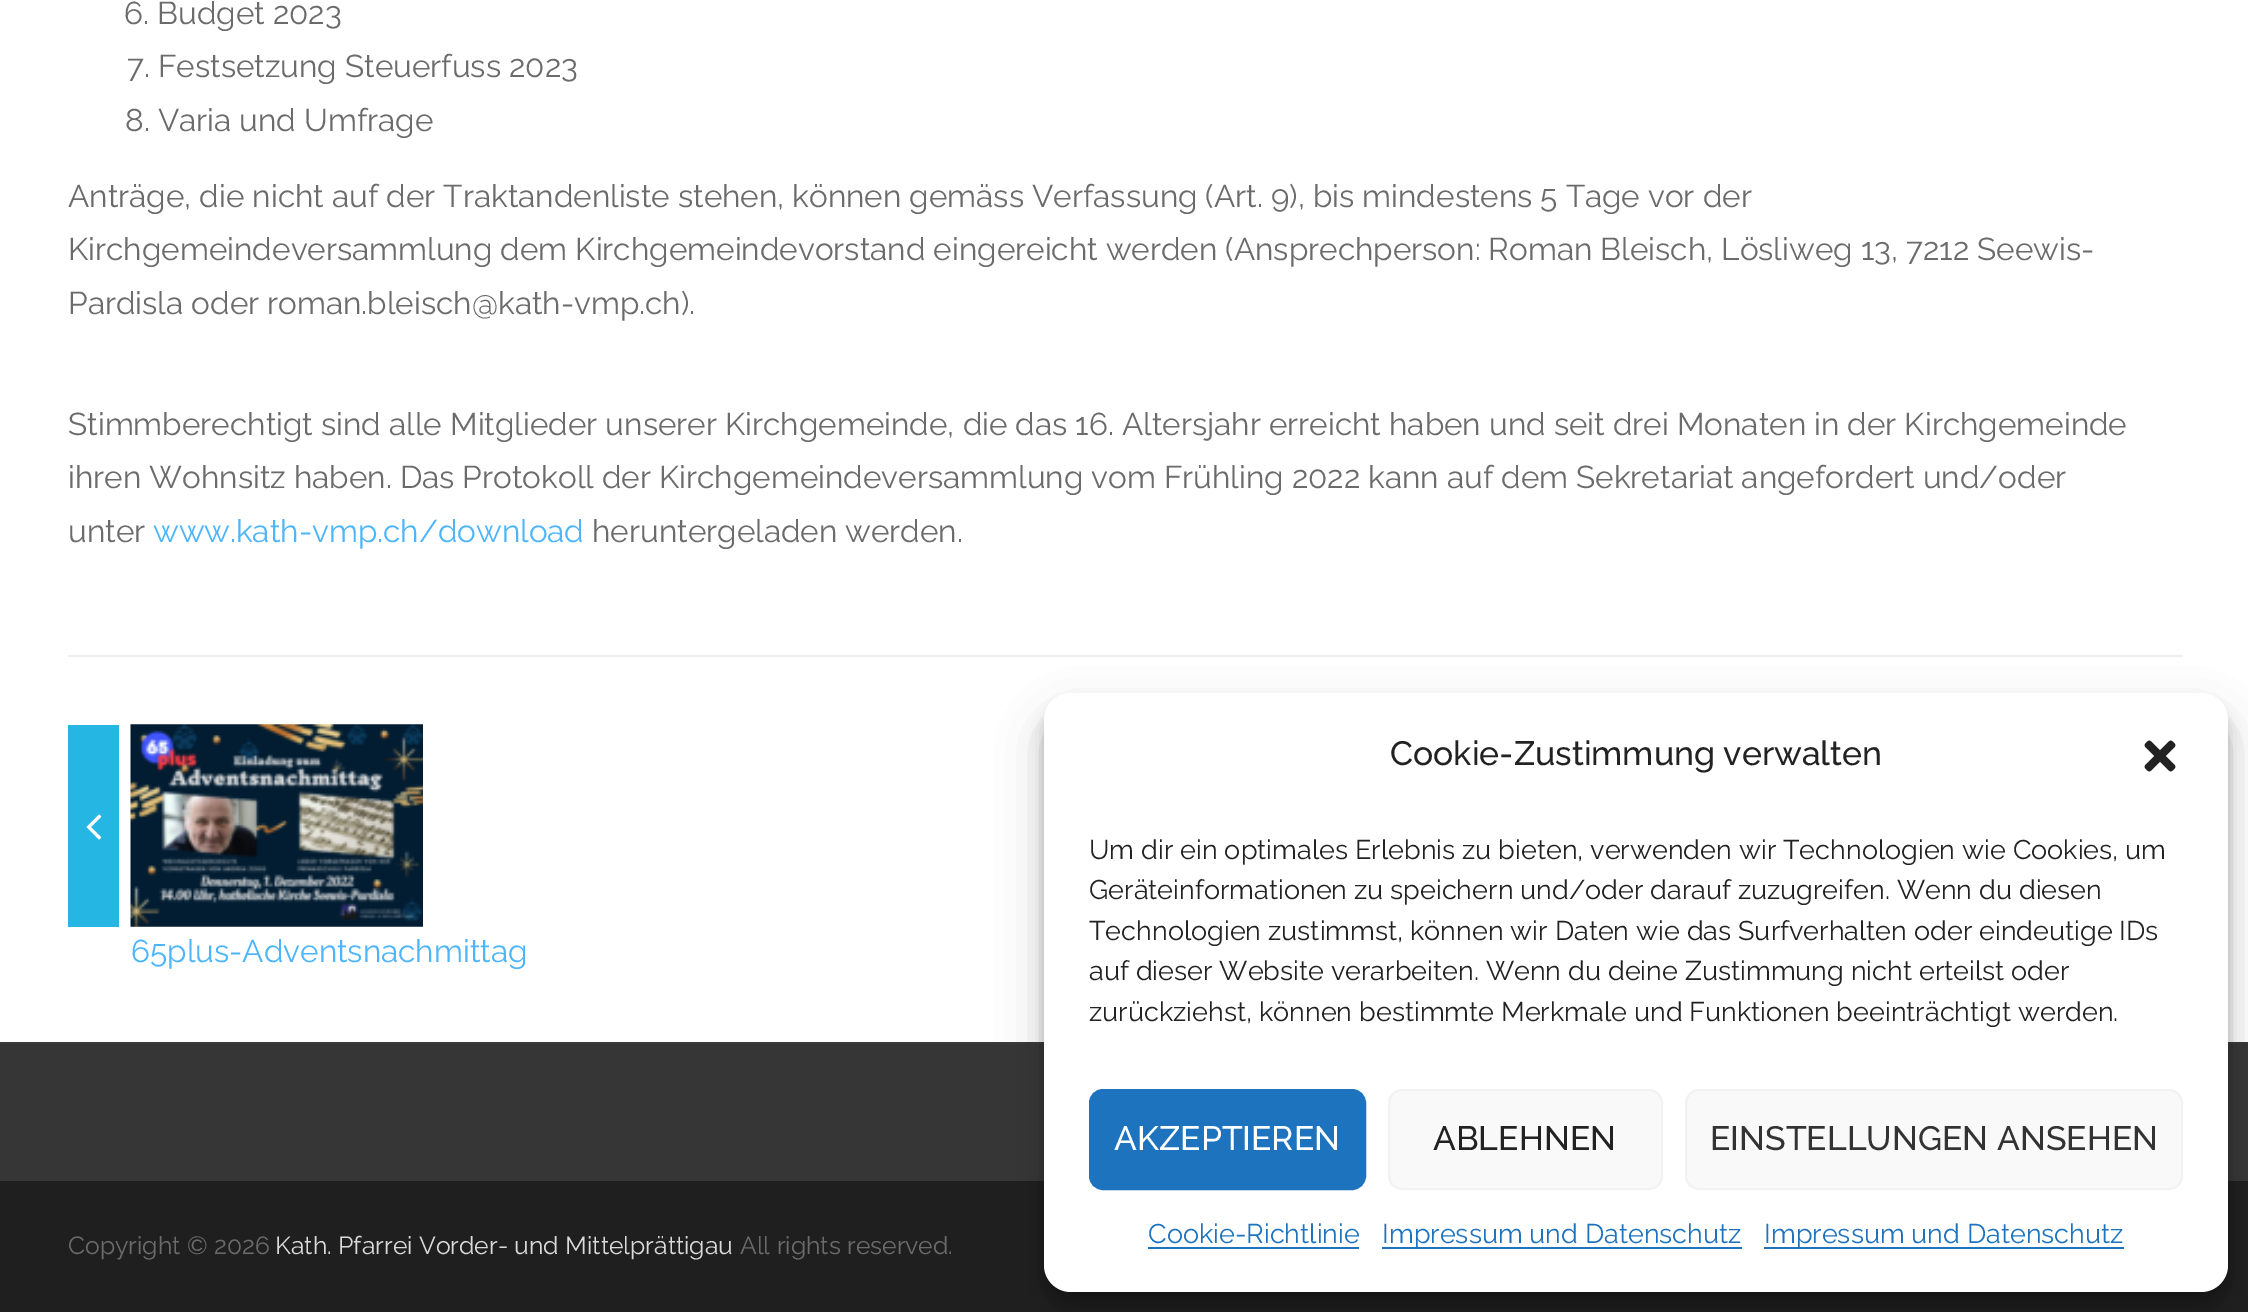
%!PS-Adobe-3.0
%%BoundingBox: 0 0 2248 1312
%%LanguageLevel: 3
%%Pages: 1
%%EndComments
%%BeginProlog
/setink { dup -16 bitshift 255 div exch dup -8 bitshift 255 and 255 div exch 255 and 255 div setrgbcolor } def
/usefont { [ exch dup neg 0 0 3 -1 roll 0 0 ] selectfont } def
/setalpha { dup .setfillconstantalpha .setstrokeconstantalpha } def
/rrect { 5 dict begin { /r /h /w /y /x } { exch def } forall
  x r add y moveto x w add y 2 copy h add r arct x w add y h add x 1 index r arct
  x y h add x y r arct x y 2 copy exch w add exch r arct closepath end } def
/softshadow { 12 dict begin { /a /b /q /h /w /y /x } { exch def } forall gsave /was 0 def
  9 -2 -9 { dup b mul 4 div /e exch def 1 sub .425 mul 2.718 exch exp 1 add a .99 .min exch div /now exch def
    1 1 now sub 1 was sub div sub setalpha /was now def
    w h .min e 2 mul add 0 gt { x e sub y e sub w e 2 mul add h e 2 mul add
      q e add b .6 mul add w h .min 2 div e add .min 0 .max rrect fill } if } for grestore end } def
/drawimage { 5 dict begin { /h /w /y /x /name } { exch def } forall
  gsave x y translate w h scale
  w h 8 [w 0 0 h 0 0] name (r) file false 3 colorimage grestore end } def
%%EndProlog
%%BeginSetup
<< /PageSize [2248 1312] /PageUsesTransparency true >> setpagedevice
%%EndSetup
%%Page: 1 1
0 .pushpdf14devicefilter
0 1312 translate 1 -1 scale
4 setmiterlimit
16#FFFFFF setink
0 0 2248 1312 rectfill
16#EEEEEE setink
68 655 2115 2 rectfill
/Raleway-Regular 31.5 usefont
16#6B6B6B setink
[
    [(6. Budget 2023) 124 24]
    [(7. Festsetzung Steuerfuss 2023) 127 77]
    [(8. Varia und Umfrage) 125 131]
    [(Anträge, die nicht auf der Traktandenliste stehen, können gemäss Verfassung \(Art. 9\), bis mindestens 5 Tage vor der) 68 207]
    [(Kirchgemeindeversammlung dem Kirchgemeindevorstand eingereicht werden \(Ansprechperson: Roman Bleisch, Lösliweg 13, 7212 Seewis-) 68 260]
    [(Pardisla oder roman.bleisch@kath-vmp.ch\).) 68 314]
    [(Stimmberechtigt sind alle Mitglieder unserer Kirchgemeinde, die das 16. Altersjahr erreicht haben und seit drei Monaten in der Kirchgemeinde) 68 435]
    [(ihren Wohnsitz haben. Das Protokoll der Kirchgemeindeversammlung vom Frühling 2022 kann auf dem Sekretariat angefordert und/oder) 68 488]
    [(unter) 68 542]
] { aload pop moveto show } forall
16#4DB5FB setink
153 542 moveto (www.kath-vmp.ch/download) show
16#6B6B6B setink
592 542 moveto (heruntergeladen werden.) show
16#26B6E4 setink
68 725 51 202 rectfill
(img1.raw) 86 814 16 26 drawimage
(img2.raw) 130 724 293 203 drawimage
16#4DB5FB setink
131 962 moveto (65plus-Adventsnachmittag) show
[
    [0 1181 2248 131 16#1F1F1F]
    [0 1042 2248 2 16#3A3A3A]
    [0 1044 2248 137 16#363636]
] { aload pop setink rectfill } forall
/Raleway-Regular 24.75 usefont
16#6B6B6B setink
68 1254 moveto (Copyright © 2026) show
16#DADADA setink
275 1254 moveto (Kath. Pfarrei Vorder- und Mittelprättigau) show
16#6B6B6B setink
740 1254 moveto (All rights reserved.) show
16#000000 setink
1044 707 1184 598 27 7 0.23 softshadow
1044 716 1184 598 27 22.5 0.19 softshadow
16#FFFFFF setink
1044 693 1184 599 27 rrect fill
/Raleway-Medium 33.75 usefont
16#222222 setink
1390 765 moveto (Cookie-Zustimmung verwalten) show
(img3.raw) 2144 740 32 32 drawimage
/Raleway-Regular 27 usefont
[
    [(Um dir ein optimales Erlebnis zu bieten, verwenden wir Technologien wie Cookies, um) 1089 859]
    [(Geräteinformationen zu speichern und/oder darauf zuzugreifen. Wenn du diesen) 1089 899]
    [(Technologien zustimmst, können wir Daten wie das Surfverhalten oder eindeutige IDs) 1089 940]
    [(auf dieser Website verarbeiten. Wenn du deine Zustimmung nicht erteilst oder) 1089 980]
    [(zurückziehst, können bestimmte Merkmale und Funktionen beeinträchtigt werden.) 1089 1021]
] { aload pop moveto show } forall
16#1E73BE setink
1090 1090 275 99 13 rrect gsave fill grestore
2 setlinewidth
stroke
/Raleway-Medium 33.75 usefont
16#FFFFFF setink
1114 1150 moveto (AKZEPTIEREN) show
16#F9F9F9 setink
1389 1090 273 99 13 rrect gsave fill grestore
16#F2F2F2 setink
stroke
16#222222 setink
1433 1150 moveto (ABLEHNEN) show
16#F9F9F9 setink
1686 1090 496 99 13 rrect gsave fill grestore
16#F2F2F2 setink
stroke
16#333333 setink
1710 1150 moveto (EINSTELLUNGEN ANSEHEN) show
/Raleway-Regular 27 usefont
16#1E73BE setink
1148 1243 moveto (Cookie-Richtlinie) show
1148 1247 211 2 rectfill
1382 1247 360 2 rectfill
1382 1243 moveto (Impressum und Datenschutz) show
1764 1247 360 2 rectfill
1764 1243 moveto (Impressum und Datenschutz) show
.poppdf14devicefilter showpage
%%EOF
